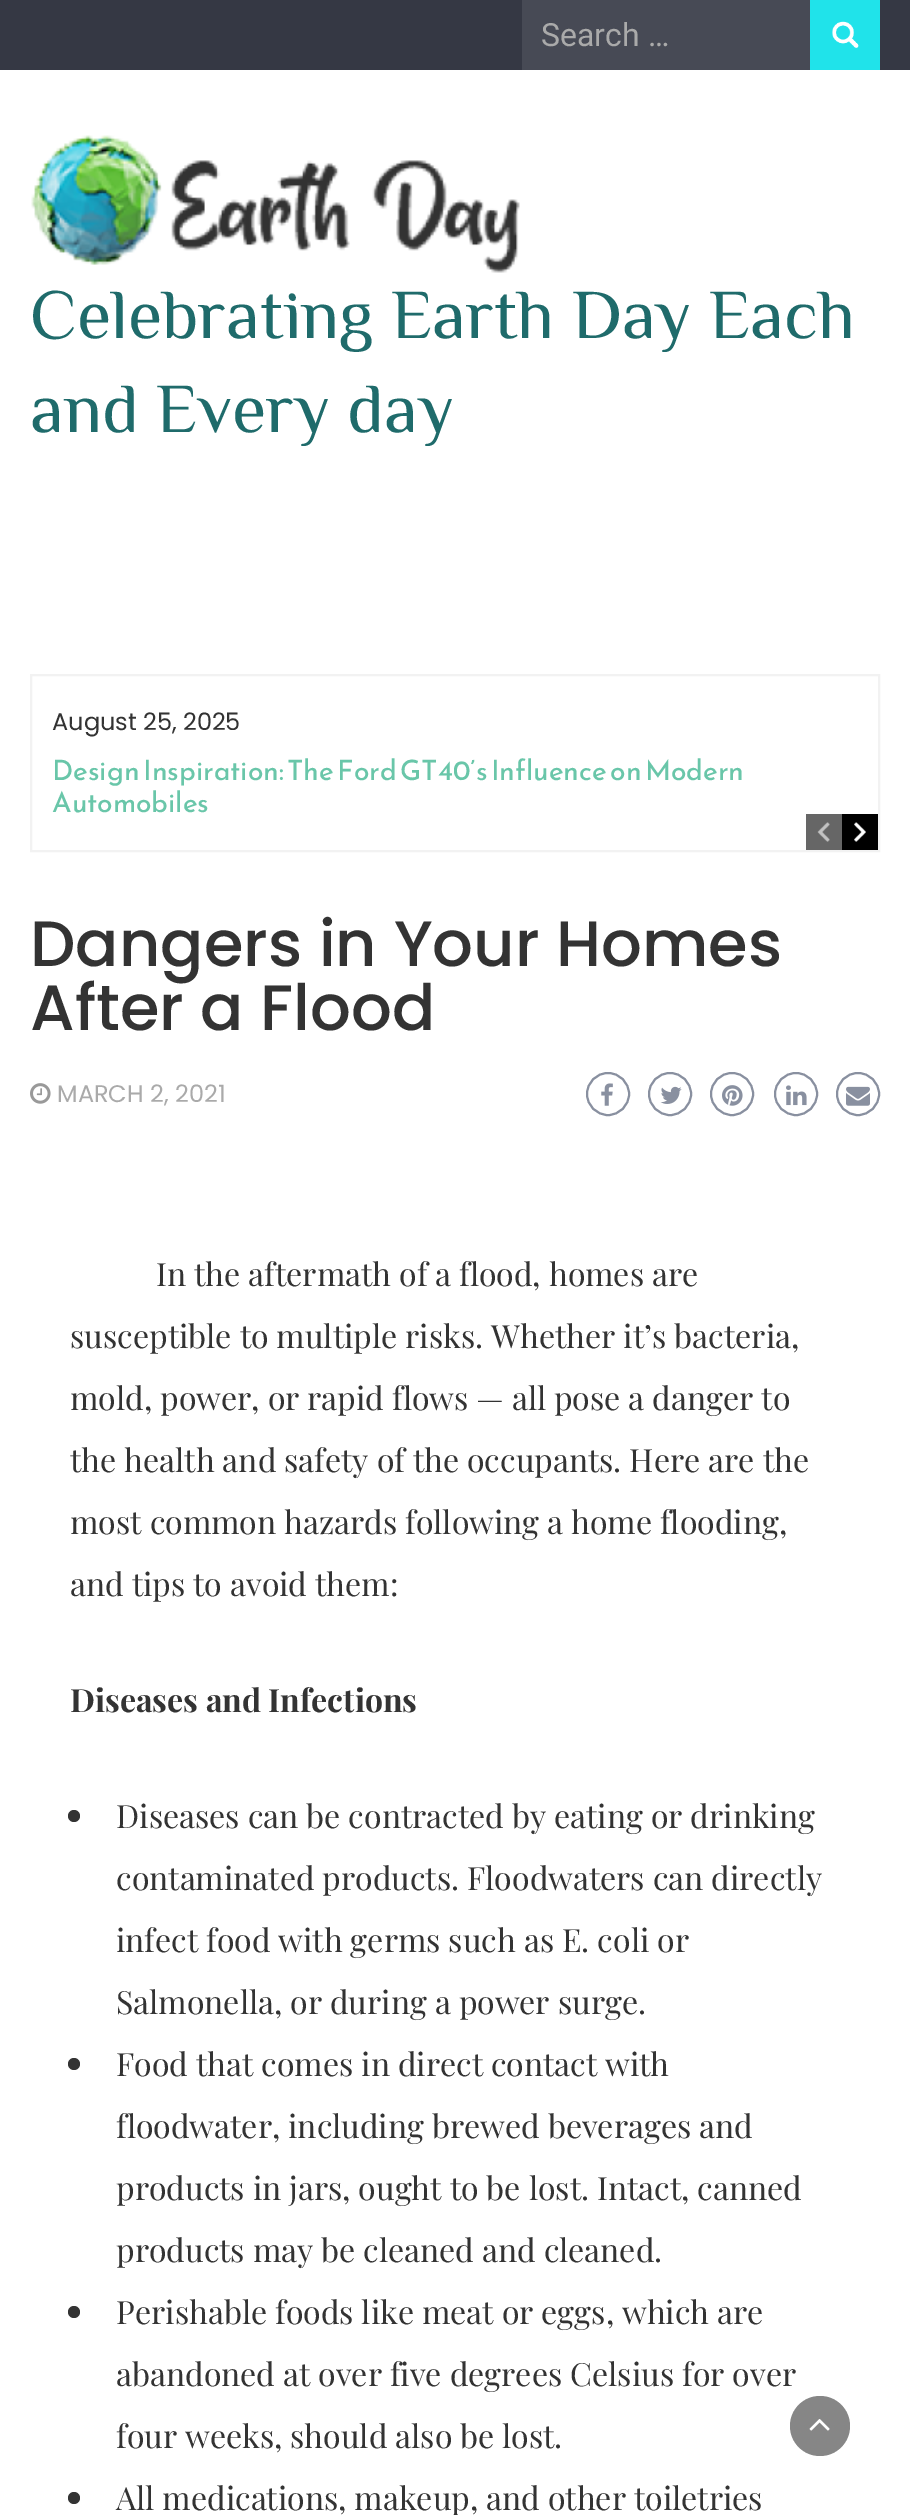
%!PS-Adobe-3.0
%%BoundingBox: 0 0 910 2515
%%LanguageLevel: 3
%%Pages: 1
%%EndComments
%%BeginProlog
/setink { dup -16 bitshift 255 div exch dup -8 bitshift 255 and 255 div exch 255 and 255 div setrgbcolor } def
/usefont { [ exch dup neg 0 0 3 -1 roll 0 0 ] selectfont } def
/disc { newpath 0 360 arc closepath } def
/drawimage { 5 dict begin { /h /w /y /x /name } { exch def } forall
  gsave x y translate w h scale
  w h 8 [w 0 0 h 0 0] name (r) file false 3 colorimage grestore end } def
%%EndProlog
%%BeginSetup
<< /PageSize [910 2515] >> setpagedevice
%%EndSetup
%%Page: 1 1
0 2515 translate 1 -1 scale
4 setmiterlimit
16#FFFFFF setink
0 0 910 2515 rectfill
16#353844 setink
0 0 910 70 rectfill
16#474A55 setink
522 0 288 70 rectfill
/Roboto-Regular 32 usefont
16#AAAAAA setink
541 46 moveto (Search …) show
16#20E3EA setink
810 0 70 70 rectfill
(img1.raw) 832 21 27 27 drawimage
(img2.raw) 31 135 489 138 drawimage
/Philosopher-Regular 70 usefont
16#1F6B6B setink
30 338 moveto (Celebrating Earth Day Each) show
30 432 moveto (and Every day) show
16#F2F2F2 setink
2 setlinewidth
31 675 848 176 rectstroke
/Poppins-Regular 24 usefont
16#333333 setink
52 730 moveto (August 25, 2025) show
/ReemKufi-Regular 28 usefont
16#69C6A9 setink
52 780 moveto (Design Inspiration: The Ford GT40’s Influence on Modern) show
52 812 moveto (Automobiles) show
16#666666 setink
806 814 36 36 rectfill
(img3.raw) 817 822 13 20 drawimage
16#000000 setink
842 814 36 36 rectfill
(img4.raw) 854 822 12 20 drawimage
/Poppins-Medium 64 usefont
16#333333 setink
30 966 moveto (Dangers in Your Homes) show
30 1030 moveto (After a Flood) show
(img5.raw) 30 1083 21 21 drawimage
/Poppins-Regular 24 usefont
16#AAAAAA setink
57 1102 moveto (MARCH 2, 2021) show
16#8990A0 setink
608 1094 21 disc stroke
(img6.raw) 601 1083 12 23 drawimage
670 1094 21 disc stroke
(img7.raw) 660 1086 22 18 drawimage
732 1094 21 disc stroke
(img8.raw) 722 1085 21 21 drawimage
796 1094 21 disc stroke
(img9.raw) 786 1085 21 21 drawimage
858 1094 21 disc stroke
(img10.raw) 846 1086 24 20 drawimage
/PlayfairDisplay-Regular 32 usefont
16#333333 setink
[
    [(In the aftermath of a flood, homes are) 156 1286]
    [(susceptible to multiple risks. Whether it’s bacteria,) 70 1348]
    [(mold, power, or rapid flows — all pose a danger to) 70 1410]
    [(the health and safety of the occupants. Here are the) 70 1472]
    [(most common hazards following a home flooding,) 70 1534]
    [(and tips to avoid them:) 70 1596]
] { aload pop moveto show } forall
/PlayfairDisplay-Bold 32 usefont
70 1712 moveto (Diseases and Infections) show
74 1816 6 disc fill
/PlayfairDisplay-Regular 32 usefont
[
    [(Diseases can be contracted by eating or drinking) 116 1828]
    [(contaminated products. Floodwaters can directly) 116 1890]
    [(infect food with germs such as E. coli or) 116 1952]
    [(Salmonella, or during a power surge.) 116 2014]
] { aload pop moveto show } forall
74 2064 6 disc fill
[
    [(Food that comes in direct contact with) 116 2076]
    [(floodwater, including brewed beverages and) 116 2138]
    [(products in jars, ought to be lost. Intact, canned) 116 2200]
    [(products may be cleaned and cleaned.) 116 2262]
] { aload pop moveto show } forall
74 2312 6 disc fill
[
    [(Perishable foods like meat or eggs, which are) 116 2324]
    [(abandoned at over five degrees Celsius for over) 116 2386]
    [(four weeks, should also be lost.) 116 2448]
] { aload pop moveto show } forall
74 2498 6 disc fill
116 2510 moveto (All medications, makeup, and other toiletries) show
16#868686 setink
820 2426 30 disc fill
(img11.raw) 809 2419 21 12 drawimage
showpage
%%EOF
